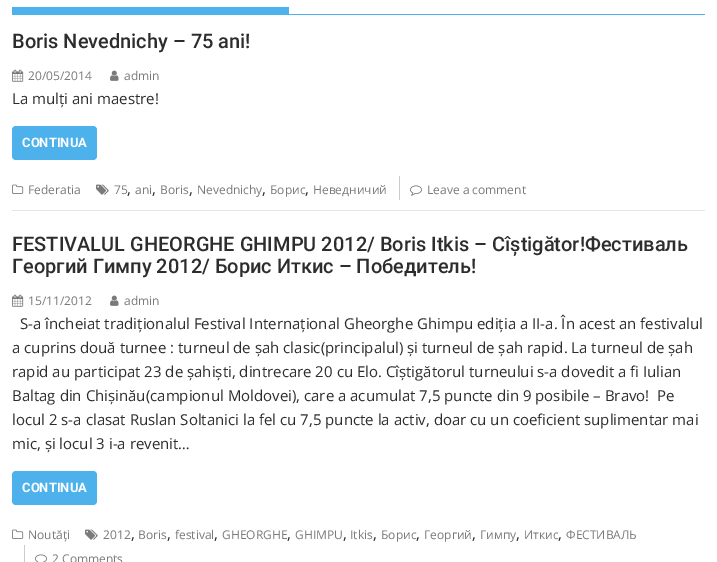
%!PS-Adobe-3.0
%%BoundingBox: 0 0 717 562
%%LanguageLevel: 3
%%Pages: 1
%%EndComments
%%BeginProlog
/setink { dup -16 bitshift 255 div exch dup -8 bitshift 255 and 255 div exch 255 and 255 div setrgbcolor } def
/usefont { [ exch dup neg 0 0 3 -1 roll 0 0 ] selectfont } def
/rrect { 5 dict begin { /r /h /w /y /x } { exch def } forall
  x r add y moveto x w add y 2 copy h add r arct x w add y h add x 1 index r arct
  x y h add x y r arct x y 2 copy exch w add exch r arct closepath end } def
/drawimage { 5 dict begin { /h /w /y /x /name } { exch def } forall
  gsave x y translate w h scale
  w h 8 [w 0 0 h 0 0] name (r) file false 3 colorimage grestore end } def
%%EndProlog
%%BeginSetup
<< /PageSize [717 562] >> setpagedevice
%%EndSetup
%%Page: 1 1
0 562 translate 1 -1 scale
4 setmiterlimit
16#FFFFFF setink
0 0 717 562 rectfill
[
    [12 14 693 1 16#4DB2EC]
    [12 7 277 7 16#4DB2EC]
    [12 210 693 1 16#E5E5E5]
] { aload pop setink rectfill } forall
/Roboto-Medium 20 usefont
16#2D2D2D setink
12 48 moveto (Boris Nevednichy – 75 ani!) show
(img1.raw) 12 69 12 13 drawimage
/OpenSans-Regular 12 usefont
16#7A7A7A setink
28 80 moveto (20/05/2014) show
(img2.raw) 110 70 9 11 drawimage
124 80 moveto (admin) show
/OpenSans-Regular 15 usefont
16#2D2D2D setink
12 104 moveto (La mulți ani maestre!) show
16#4DB2EC setink
12 126 85 34 4 rrect fill
/Roboto-Bold 13 usefont
16#FFFFFF setink
22 147 moveto (CONTINUA) show
(img3.raw) 12 184 12 10 drawimage
/OpenSans-Regular 12 usefont
16#7A7A7A setink
28 194 moveto (Federatia) show
(img4.raw) 96 184 13 11 drawimage
114 194 moveto (75) show
/OpenSans-Regular 15 usefont
16#2D2D2D setink
127 194 moveto (,) show
/OpenSans-Regular 12 usefont
16#7A7A7A setink
135 194 moveto (ani) show
/OpenSans-Regular 15 usefont
16#2D2D2D setink
152 194 moveto (,) show
/OpenSans-Regular 12 usefont
16#7A7A7A setink
160 194 moveto (Boris) show
/OpenSans-Regular 15 usefont
16#2D2D2D setink
189 194 moveto (,) show
/OpenSans-Regular 12 usefont
16#7A7A7A setink
197 194 moveto (Nevednichy) show
/OpenSans-Regular 15 usefont
16#2D2D2D setink
262 194 moveto (,) show
/OpenSans-Regular 12 usefont
16#7A7A7A setink
270 194 moveto (Борис) show
/OpenSans-Regular 15 usefont
16#2D2D2D setink
305 194 moveto (,) show
/OpenSans-Regular 12 usefont
16#7A7A7A setink
313 194 moveto (Неведничий) show
16#CCCCCC setink
399 176 1 24 rectfill
(img5.raw) 410 185 12 11 drawimage
16#7A7A7A setink
427 194 moveto (Leave a comment) show
/Roboto-Medium 20 usefont
16#2D2D2D setink
12 251 moveto (FESTIVALUL GHEORGHE GHIMPU 2012/ Boris Itkis – Cîștigător!Фестиваль) show
12 273 moveto (Георгий Гимпу 2012/ Борис Иткис – Победитель!) show
(img1.raw) 12 294 12 13 drawimage
/OpenSans-Regular 12 usefont
16#7A7A7A setink
28 305 moveto (15/11/2012) show
(img2.raw) 110 295 9 11 drawimage
124 305 moveto (admin) show
/OpenSans-Regular 15 usefont
16#2D2D2D setink
[
    [(S-a încheiat tradiționalul Festival Internațional Gheorghe Ghimpu ediția a II-a. În acest an festivalul) 20 329]
    [(a cuprins două turnee : turneul de șah clasic\(principalul\) și turneul de șah rapid. La turneul de șah) 12 353]
    [(rapid au participat 23 de șahiști, dintrecare 20 cu Elo. Cîștigătorul turneului s-a dovedit a fi Iulian) 12 377]
    [(Baltag din Chișinău\(campionul Moldovei\), care a acumulat 7,5 puncte din 9 posibile – Bravo!  Pe) 12 401]
    [(locul 2 s-a clasat Ruslan Soltanici la fel cu 7,5 puncte la activ, doar cu un coeficient suplimentar mai) 12 425]
    [(mic, și locul 3 i-a revenit…) 12 449]
] { aload pop moveto show } forall
16#4DB2EC setink
12 471 85 34 4 rrect fill
/Roboto-Bold 13 usefont
16#FFFFFF setink
22 492 moveto (CONTINUA) show
(img3.raw) 12 529 12 10 drawimage
/OpenSans-Regular 12 usefont
16#7A7A7A setink
28 539 moveto (Noutăți) show
(img4.raw) 85 529 13 11 drawimage
103 539 moveto (2012) show
/OpenSans-Regular 15 usefont
16#2D2D2D setink
131 539 moveto (,) show
/OpenSans-Regular 12 usefont
16#7A7A7A setink
138 539 moveto (Boris) show
/OpenSans-Regular 15 usefont
16#2D2D2D setink
167 539 moveto (,) show
/OpenSans-Regular 12 usefont
16#7A7A7A setink
175 539 moveto (festival) show
/OpenSans-Regular 15 usefont
16#2D2D2D setink
214 539 moveto (,) show
/OpenSans-Regular 12 usefont
16#7A7A7A setink
222 539 moveto (GHEORGHE) show
/OpenSans-Regular 15 usefont
16#2D2D2D setink
287 539 moveto (,) show
/OpenSans-Regular 12 usefont
16#7A7A7A setink
295 539 moveto (GHIMPU) show
/OpenSans-Regular 15 usefont
16#2D2D2D setink
343 539 moveto (,) show
/OpenSans-Regular 12 usefont
16#7A7A7A setink
350 539 moveto (Itkis) show
/OpenSans-Regular 15 usefont
16#2D2D2D setink
373 539 moveto (,) show
/OpenSans-Regular 12 usefont
16#7A7A7A setink
381 539 moveto (Борис) show
/OpenSans-Regular 15 usefont
16#2D2D2D setink
416 539 moveto (,) show
/OpenSans-Regular 12 usefont
16#7A7A7A setink
424 539 moveto (Георгий) show
/OpenSans-Regular 15 usefont
16#2D2D2D setink
472 539 moveto (,) show
/OpenSans-Regular 12 usefont
16#7A7A7A setink
480 539 moveto (Гимпу) show
/OpenSans-Regular 15 usefont
16#2D2D2D setink
516 539 moveto (,) show
/OpenSans-Regular 12 usefont
16#7A7A7A setink
524 539 moveto (Иткис) show
/OpenSans-Regular 15 usefont
16#2D2D2D setink
558 539 moveto (,) show
/OpenSans-Regular 12 usefont
16#7A7A7A setink
566 539 moveto (ФЕСТИВАЛЬ) show
16#CCCCCC setink
24 545 1 17 rectfill
(img6.raw) 35 554 12 8 drawimage
16#7A7A7A setink
52 563 moveto (2 Comments) show
showpage
%%EOF
